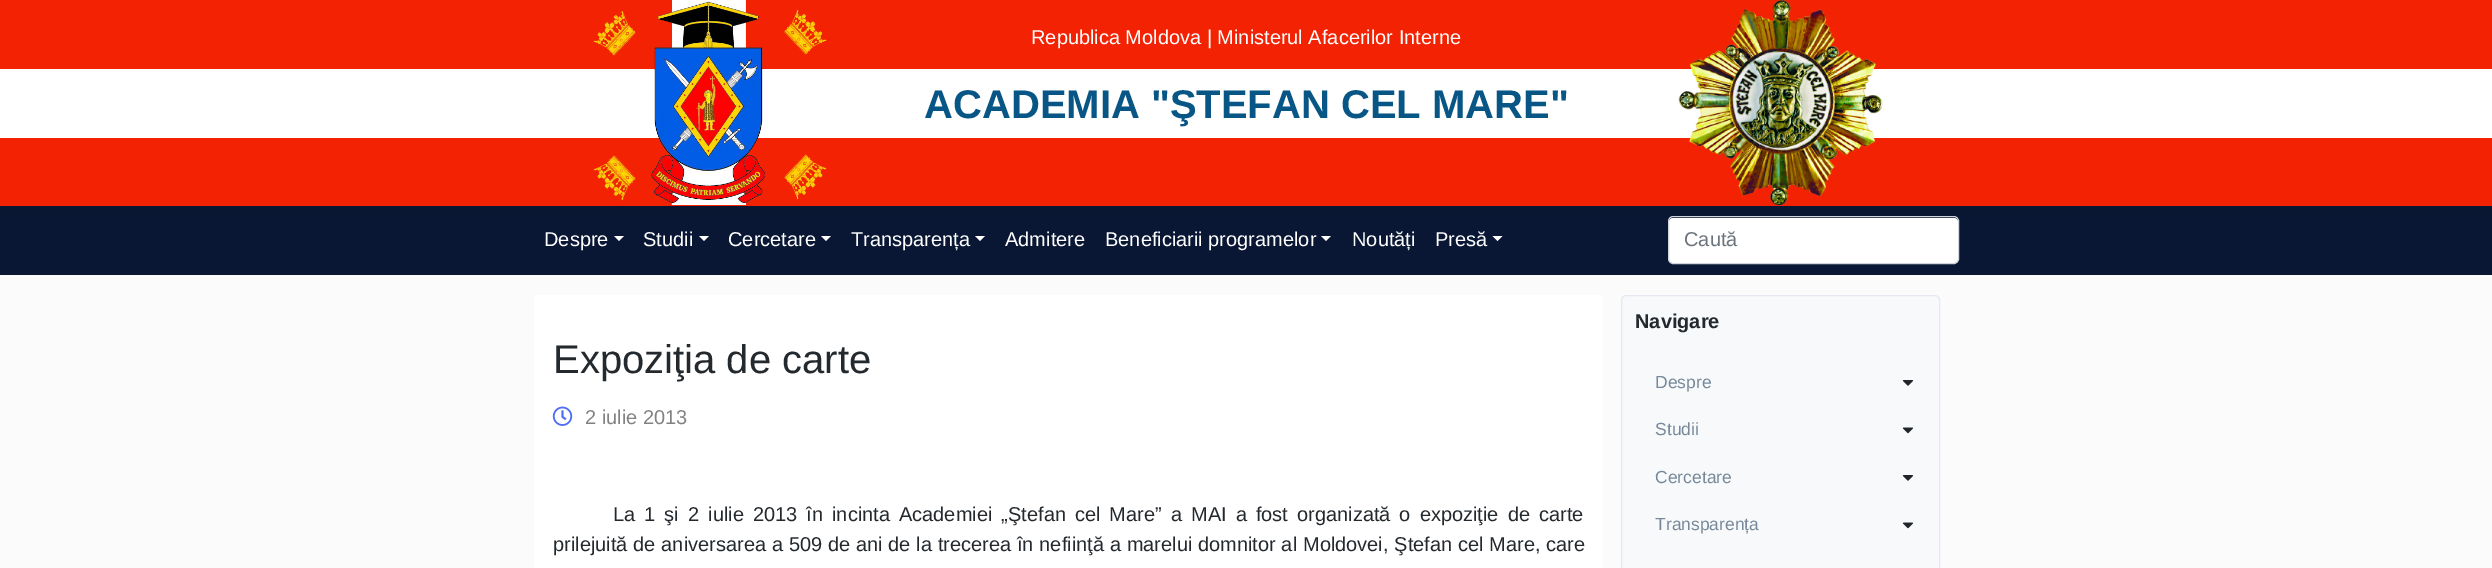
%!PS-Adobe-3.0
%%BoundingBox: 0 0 2492 568
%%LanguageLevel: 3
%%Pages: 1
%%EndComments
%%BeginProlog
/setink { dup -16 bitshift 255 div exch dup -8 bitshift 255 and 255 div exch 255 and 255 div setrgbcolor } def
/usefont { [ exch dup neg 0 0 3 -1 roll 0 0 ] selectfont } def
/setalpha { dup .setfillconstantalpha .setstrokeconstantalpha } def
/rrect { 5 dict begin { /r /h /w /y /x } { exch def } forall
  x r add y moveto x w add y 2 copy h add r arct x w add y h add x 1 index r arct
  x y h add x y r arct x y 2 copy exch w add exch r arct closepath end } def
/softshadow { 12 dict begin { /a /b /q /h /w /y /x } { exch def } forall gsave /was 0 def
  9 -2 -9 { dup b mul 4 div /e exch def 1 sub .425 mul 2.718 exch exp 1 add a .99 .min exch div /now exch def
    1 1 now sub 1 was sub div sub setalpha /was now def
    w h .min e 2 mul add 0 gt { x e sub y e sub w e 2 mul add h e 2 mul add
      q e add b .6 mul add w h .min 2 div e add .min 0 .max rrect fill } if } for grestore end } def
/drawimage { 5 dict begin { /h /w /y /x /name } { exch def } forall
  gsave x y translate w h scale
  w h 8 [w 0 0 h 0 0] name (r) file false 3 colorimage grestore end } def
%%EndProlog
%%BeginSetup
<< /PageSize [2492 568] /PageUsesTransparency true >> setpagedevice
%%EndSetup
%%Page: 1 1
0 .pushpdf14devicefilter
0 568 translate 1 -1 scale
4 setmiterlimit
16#FBFBFB setink
0 0 2492 568 rectfill
16#091734 setink
0 206 2492 69 rectfill
16#000000 setink
0 10 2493 205 0 10 0.05 softshadow
[
    [0 69 2492 69 16#FFFFFF]
    [0 0 2492 69 16#F22202]
    [0 138 2492 68 16#F22202]
] { aload pop setink rectfill } forall
(img1.raw) 593 0 234 205 drawimage
/LiberationSans-Regular 20 usefont
16#FFFFFF setink
1031 44 moveto (Republica Moldova | Ministerul Afacerilor Interne) show
/LiberationSans-Bold 40 usefont
16#085685 setink
924 118 moveto (ACADEMIA "ŞTEFAN CEL MARE") show
(img2.raw) 1678 0 205 205 drawimage
/LiberationSans-Regular 20 usefont
16#FFFFFF setink
544 246 moveto (Despre) show
614 236 moveto 624 236 lineto 619 241 lineto closepath fill
643 246 moveto (Studii) show
699 236 moveto 709 236 lineto 704 241 lineto closepath fill
728 246 moveto (Cercetare) show
821 236 moveto 831 236 lineto 826 241 lineto closepath fill
851 246 moveto (Transparența) show
975 236 moveto 985 236 lineto 980 241 lineto closepath fill
1005 246 moveto (Admitere) show
1105 246 moveto (Beneficiarii programelor) show
1321 236 moveto 1331 236 lineto 1326 241 lineto closepath fill
1352 246 moveto (Noutăți) show
1435 246 moveto (Presă) show
1492.5 236 moveto 1502.5 236 lineto 1497.5 241 lineto closepath fill
1669 218 289 45 4 rrect fill
16#CED4DA setink
1668.5 216.5 290 47 4.5 rrect stroke
16#6C757D setink
1684 246 moveto (Caută) show
16#FFFFFF setink
534 295 1069 273 rectfill
/LiberationSans-Regular 40 usefont
16#24292E setink
553 373 moveto (Expoziţia de carte) show
(img3.raw) 552 406 21 20 drawimage
/LiberationSans-Regular 20 usefont
16#828282 setink
585 424 moveto (2 iulie 2013) show
16#24292E setink
613 521 moveto 3.5 0 32 (La 1 şi 2 iulie 2013 în incinta Academiei „Ştefan cel Mare” a MAI a fost organizată o expoziţie de carte) widthshow
553 551 moveto 0.25 0 32 (prilejuită de aniversarea a 509 de ani de la trecerea în nefiinţă a marelui domnitor al Moldovei, Ştefan cel Mare, care) widthshow
16#F7F9FB setink
1621.5 295.5 318 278 4.5 rrect gsave fill grestore
16#E5E7F2 setink
stroke
/LiberationSans-Bold 20 usefont
16#24292E setink
1635 328 moveto (Navigare) show
/LiberationSans-Regular 17.5 usefont
16#778899 setink
1655 388 moveto (Despre) show
(img4.raw) 1902 380 11 6 drawimage
1655 435 moveto (Studii) show
(img5.raw) 1902 427 11 7 drawimage
1655 483 moveto (Cercetare) show
(img4.raw) 1902 475 11 6 drawimage
1655 530 moveto (Transparența) show
(img5.raw) 1902 522 11 7 drawimage
.poppdf14devicefilter showpage
%%EOF
